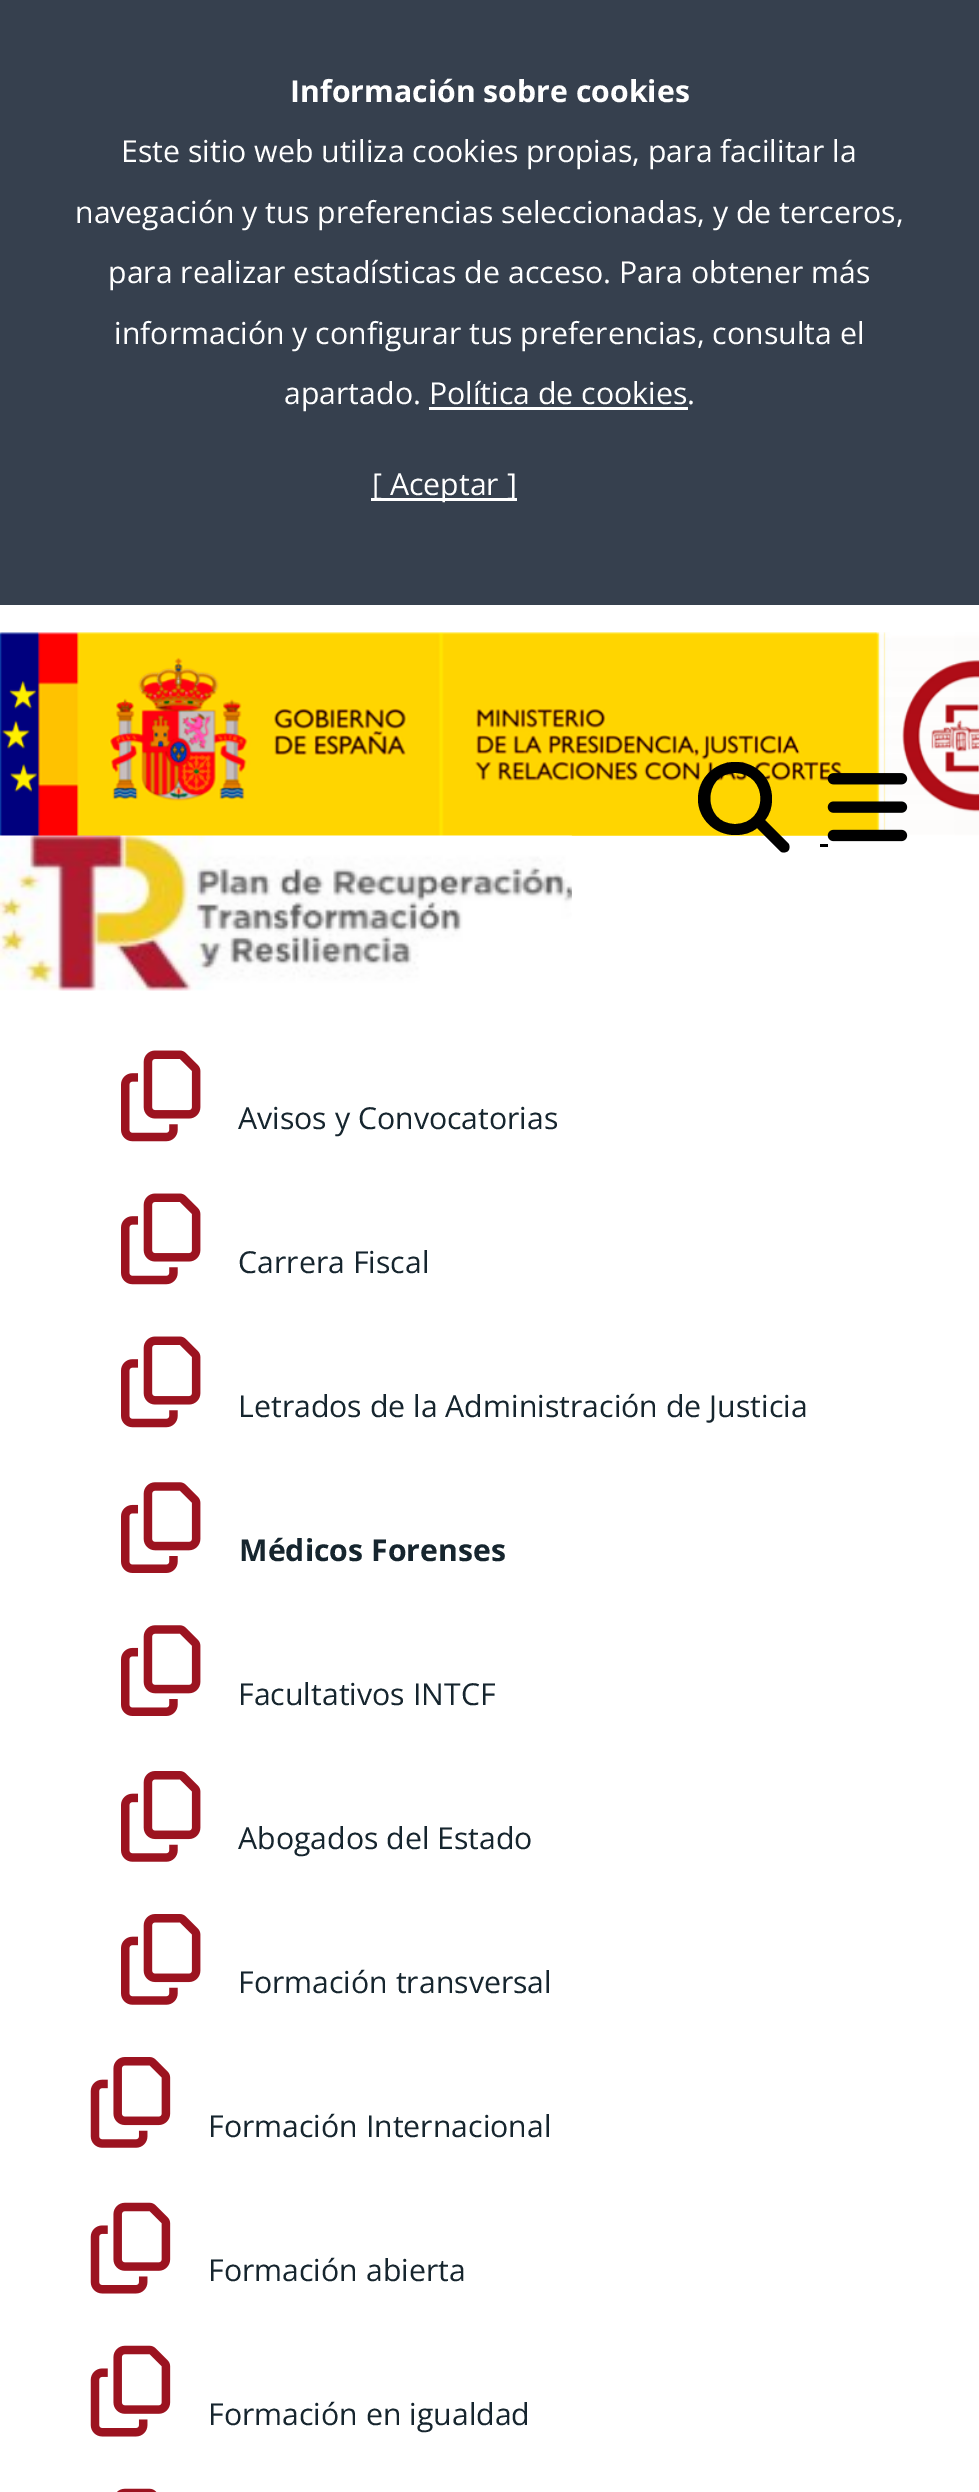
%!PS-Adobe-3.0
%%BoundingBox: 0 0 979 2492
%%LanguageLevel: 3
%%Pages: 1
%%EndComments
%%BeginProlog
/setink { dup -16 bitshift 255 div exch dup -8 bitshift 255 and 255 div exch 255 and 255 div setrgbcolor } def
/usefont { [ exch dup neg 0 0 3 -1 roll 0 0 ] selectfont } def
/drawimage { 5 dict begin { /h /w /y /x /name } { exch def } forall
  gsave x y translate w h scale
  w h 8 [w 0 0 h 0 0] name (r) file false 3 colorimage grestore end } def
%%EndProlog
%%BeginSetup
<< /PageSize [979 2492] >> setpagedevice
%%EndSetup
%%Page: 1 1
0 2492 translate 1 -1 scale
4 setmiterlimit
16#FFFFFF setink
0 0 979 2492 rectfill
16#36404E setink
0 0 979 605 rectfill
/OpenSans-Bold 30.25 usefont
16#FFFFFF setink
290 102 moveto (Información sobre cookies) show
/OpenSans-Regular 30.25 usefont
[
    [(Este sitio web utiliza cookies propias, para facilitar la) 121 162]
    [(navegación y tus preferencias seleccionadas, y de terceros,) 75 223]
    [(para realizar estadísticas de acceso. Para obtener más) 108 283]
    [(información y configurar tus preferencias, consulta el) 114 344]
    [(apartado. Política de cookies.) 284 404]
] { aload pop moveto show } forall
429 407 259 3 rectfill
371 498 146 3 rectfill
372 495 moveto ([ Aceptar ]) show
(img1.raw) 0 632 979 204 drawimage
(img2.raw) 0 835 572 156 drawimage
16#000000 setink
772 799 moveto 772 807 770 814 765 820 curveto 788 843 lineto 790 845 790 849 788 851 curveto 785 853 782 853 780 851 curveto 757 828 lineto 751 833 744 835 735 835 curveto 715 835 698 819 698 799 curveto 698 778 715 762 735 762 curveto 756 762 772 778 772 799 curveto closepath 735 824 moveto 769 824 769 773 735 773 curveto 702 773 702 824 735 824 curveto closepath fill
820 844 8 3 rectfill
(img3.raw) 827 773 81 69 drawimage
(img4.raw) 121 1050 80 92 drawimage
16#16252E setink
238 1129 moveto (Avisos y Convocatorias) show
(img4.raw) 121 1193 80 92 drawimage
238 1273 moveto (Carrera Fiscal) show
(img4.raw) 121 1336 80 92 drawimage
238 1417 moveto (Letrados de la Administración de Justicia) show
(img5.raw) 121 1482 80 91 drawimage
/OpenSans-Bold 30.25 usefont
239 1561 moveto (Médicos Forenses) show
(img5.raw) 121 1625 80 91 drawimage
/OpenSans-Regular 30.25 usefont
238 1705 moveto (Facultativos INTCF) show
(img6.raw) 121 1771 80 91 drawimage
238 1849 moveto (Abogados del Estado) show
(img6.raw) 121 1914 80 91 drawimage
238 1993 moveto (Formación transversal) show
(img7.raw) 90 2057 81 91 drawimage
208 2137 moveto (Formación Internacional) show
(img8.raw) 90 2202 81 92 drawimage
208 2281 moveto (Formación abierta) show
(img8.raw) 90 2345 81 92 drawimage
208 2425 moveto (Formación en igualdad) show
(img9.raw) 117 2488 40 4 drawimage
showpage
%%EOF
